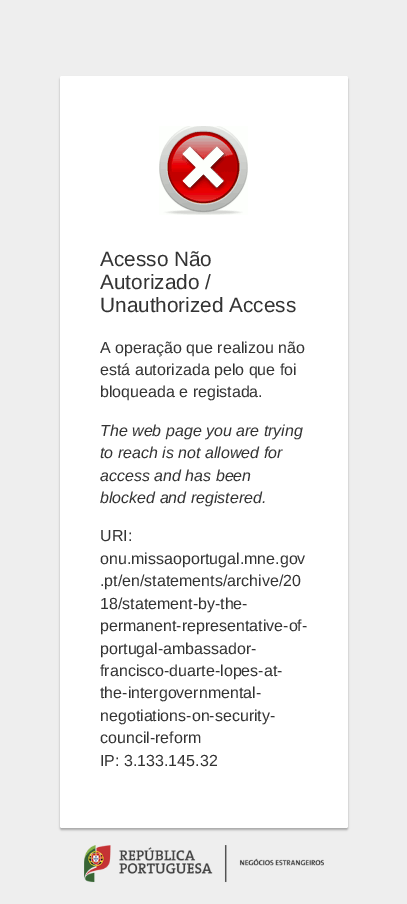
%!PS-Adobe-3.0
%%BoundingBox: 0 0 407 904
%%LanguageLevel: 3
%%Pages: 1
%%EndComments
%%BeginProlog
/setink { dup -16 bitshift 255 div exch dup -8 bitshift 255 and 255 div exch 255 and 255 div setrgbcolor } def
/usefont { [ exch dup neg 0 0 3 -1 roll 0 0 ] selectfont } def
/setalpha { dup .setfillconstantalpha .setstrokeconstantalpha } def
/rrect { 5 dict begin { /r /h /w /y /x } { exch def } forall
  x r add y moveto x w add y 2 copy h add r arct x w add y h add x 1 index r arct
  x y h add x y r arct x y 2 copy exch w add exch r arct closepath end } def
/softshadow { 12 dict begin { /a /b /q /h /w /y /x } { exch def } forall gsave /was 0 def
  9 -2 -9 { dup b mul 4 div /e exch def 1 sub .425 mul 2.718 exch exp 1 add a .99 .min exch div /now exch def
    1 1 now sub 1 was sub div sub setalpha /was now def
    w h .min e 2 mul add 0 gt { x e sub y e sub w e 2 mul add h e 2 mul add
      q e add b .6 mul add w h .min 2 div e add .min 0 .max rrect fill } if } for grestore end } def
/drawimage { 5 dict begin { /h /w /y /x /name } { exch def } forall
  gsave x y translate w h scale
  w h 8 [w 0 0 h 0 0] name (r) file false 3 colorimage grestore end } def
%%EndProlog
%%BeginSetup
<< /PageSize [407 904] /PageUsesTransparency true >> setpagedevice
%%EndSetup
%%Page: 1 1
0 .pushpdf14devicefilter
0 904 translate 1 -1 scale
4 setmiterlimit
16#EEEEEE setink
0 0 407 904 rectfill
16#000000 setink
60 78 288 752 2 1 0.3 softshadow
16#FFFFFF setink
60 76 288 752 2 rrect fill
(img1.raw) 159 126 89 89 drawimage
/LiberationSans-Regular 20.75 usefont
16#333333 setink
[
    [(Acesso Não) 100 266]
    [(Autorizado /) 100 289]
    [(Unauthorized Access) 100 312]
] { aload pop moveto show } forall
/LiberationSans-Regular 16 usefont
[
    [(A operação que realizou não) 100 353]
    [(está autorizada pelo que foi) 100 375]
    [(bloqueada e registada.) 100 397]
] { aload pop moveto show } forall
/LiberationSans-Italic 16 usefont
[
    [(The web page you are trying) 100 436]
    [(to reach is not allowed for) 100 458]
    [(access and has been) 100 481]
    [(blocked and registered.) 100 503]
] { aload pop moveto show } forall
/LiberationSans-Regular 16 usefont
[
    [(URI:) 100 541]
    [(onu.missaoportugal.mne.gov) 100 564]
    [(.pt/en/statements/archive/20) 100 586]
    [(18/statement-by-the-) 100 609]
    [(permanent-representative-of-) 100 631]
    [(portugal-ambassador-) 100 654]
    [(francisco-duarte-lopes-at-) 100 676]
    [(the-intergovernmental-) 100 698]
    [(negotiations-on-security-) 100 721]
    [(council-reform) 100 743]
    [(IP: 3.133.145.32) 100 766]
] { aload pop moveto show } forall
(img2.raw) 84 845 240 38 drawimage
.poppdf14devicefilter showpage
%%EOF
